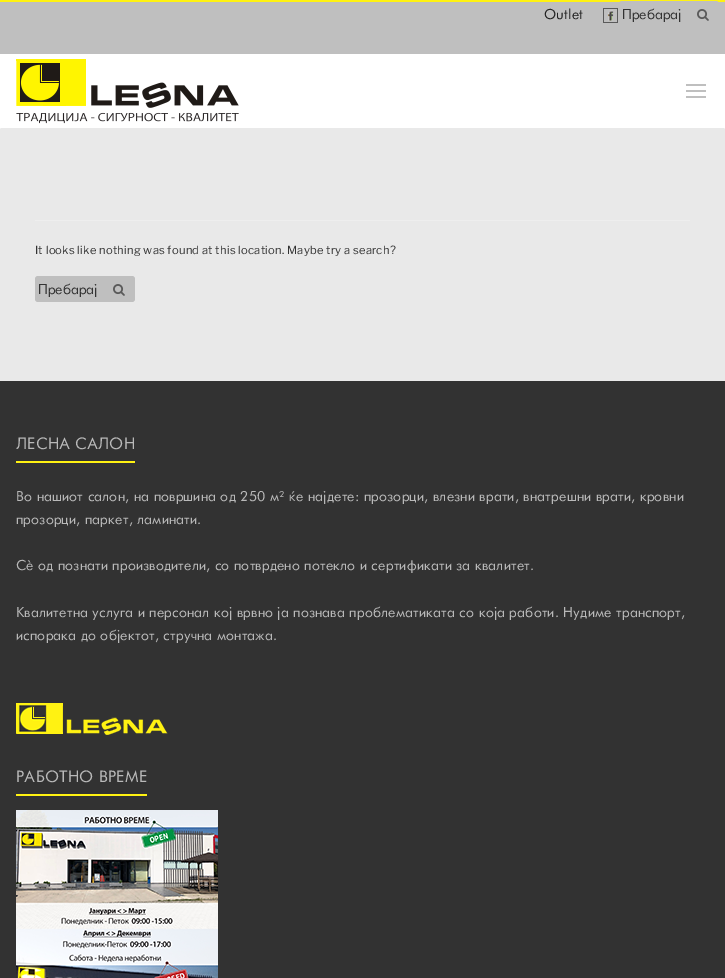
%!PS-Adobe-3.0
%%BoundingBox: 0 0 725 978
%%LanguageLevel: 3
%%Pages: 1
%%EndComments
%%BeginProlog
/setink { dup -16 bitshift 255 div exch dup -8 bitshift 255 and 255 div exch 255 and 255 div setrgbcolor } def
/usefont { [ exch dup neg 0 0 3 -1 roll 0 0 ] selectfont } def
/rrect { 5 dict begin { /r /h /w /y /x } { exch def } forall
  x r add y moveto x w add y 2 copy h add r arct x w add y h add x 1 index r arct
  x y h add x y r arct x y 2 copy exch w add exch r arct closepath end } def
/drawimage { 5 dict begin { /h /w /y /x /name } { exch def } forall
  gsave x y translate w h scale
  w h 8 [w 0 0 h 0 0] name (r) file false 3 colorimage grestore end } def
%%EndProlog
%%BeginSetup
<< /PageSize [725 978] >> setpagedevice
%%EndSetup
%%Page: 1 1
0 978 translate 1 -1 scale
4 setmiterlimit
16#FFFFFF setink
0 0 725 978 rectfill
16#FFF212 setink
0 0 725 2 rectfill
16#BFBFBF setink
0 2 725 52 rectfill
/Futura-Regular 14 usefont
16#222222 setink
544 19 moveto 0.2 0 (Outlet) ashow
(img1.raw) 603 8 15 15 drawimage
16#BFBFBF setink
619 1 100 26 3 rrect fill
16#333333 setink
622 19 moveto (Пребарај) show
(img2.raw) 697 9 12 12 drawimage
16#E9E9E9 setink
725 129 moveto 0 129 lineto 1 128 lineto 724 128 lineto closepath fill
(img3.raw) 16 59 223 65 drawimage
[
    [686 84 20 2 16#BFBFBF]
    [686 90 20 2 16#BFBFBF]
    [686 96 20 2 16#BFBFBF]
    [0 129 725 252 16#E9E9E9]
    [35 220 655 1 16#EEEEEE]
] { aload pop setink rectfill } forall
/LibreFranklin-Regular 11.25 usefont
16#333333 setink
35 254 moveto 0.2 0 (It looks like nothing was found at this location. Maybe try a search?) ashow
16#BFBFBF setink
35 276 100 26 3 rrect fill
/Futura-Regular 14 usefont
16#333333 setink
38 294 moveto (Пребарај) show
(img2.raw) 113 284 12 12 drawimage
16#323232 setink
0 381 725 597 rectfill
16#FFF212 setink
16 461 119 2 rectfill
/Futura-Regular 16 usefont
16#B9B9B9 setink
16 449 moveto 0.2 0 (ЛЕСНА САЛОН) ashow
/Futura-Regular 14 usefont
16 501 moveto 0.2 0 (Во нашиот салон, на површина од 250 м² ќе најдете: прозорци, влезни врати, внатрешни врати, кровни) ashow
16 524 moveto 0.2 0 (прозорци, паркет, ламинати.) ashow
16 570 moveto 0.2 0 (Сè од познати производители, со потврдено потекло и сертификати за квалитет.) ashow
16 617 moveto 0.2 0 (Kвалитетна услуга и персонал кој врвно ја познава проблематиката со која работи. Нудиме транспорт,) ashow
16 640 moveto 0.2 0 (испорака до објектот, стручна монтажа.) ashow
(img4.raw) 16 703 152 32 drawimage
16#FFF212 setink
16 794 131 2 rectfill
/Futura-Regular 16 usefont
16#B9B9B9 setink
16 782 moveto 0.2 0 (РАБОТНО ВРЕМЕ) ashow
(img5.raw) 16 810 202 168 drawimage
showpage
%%EOF
